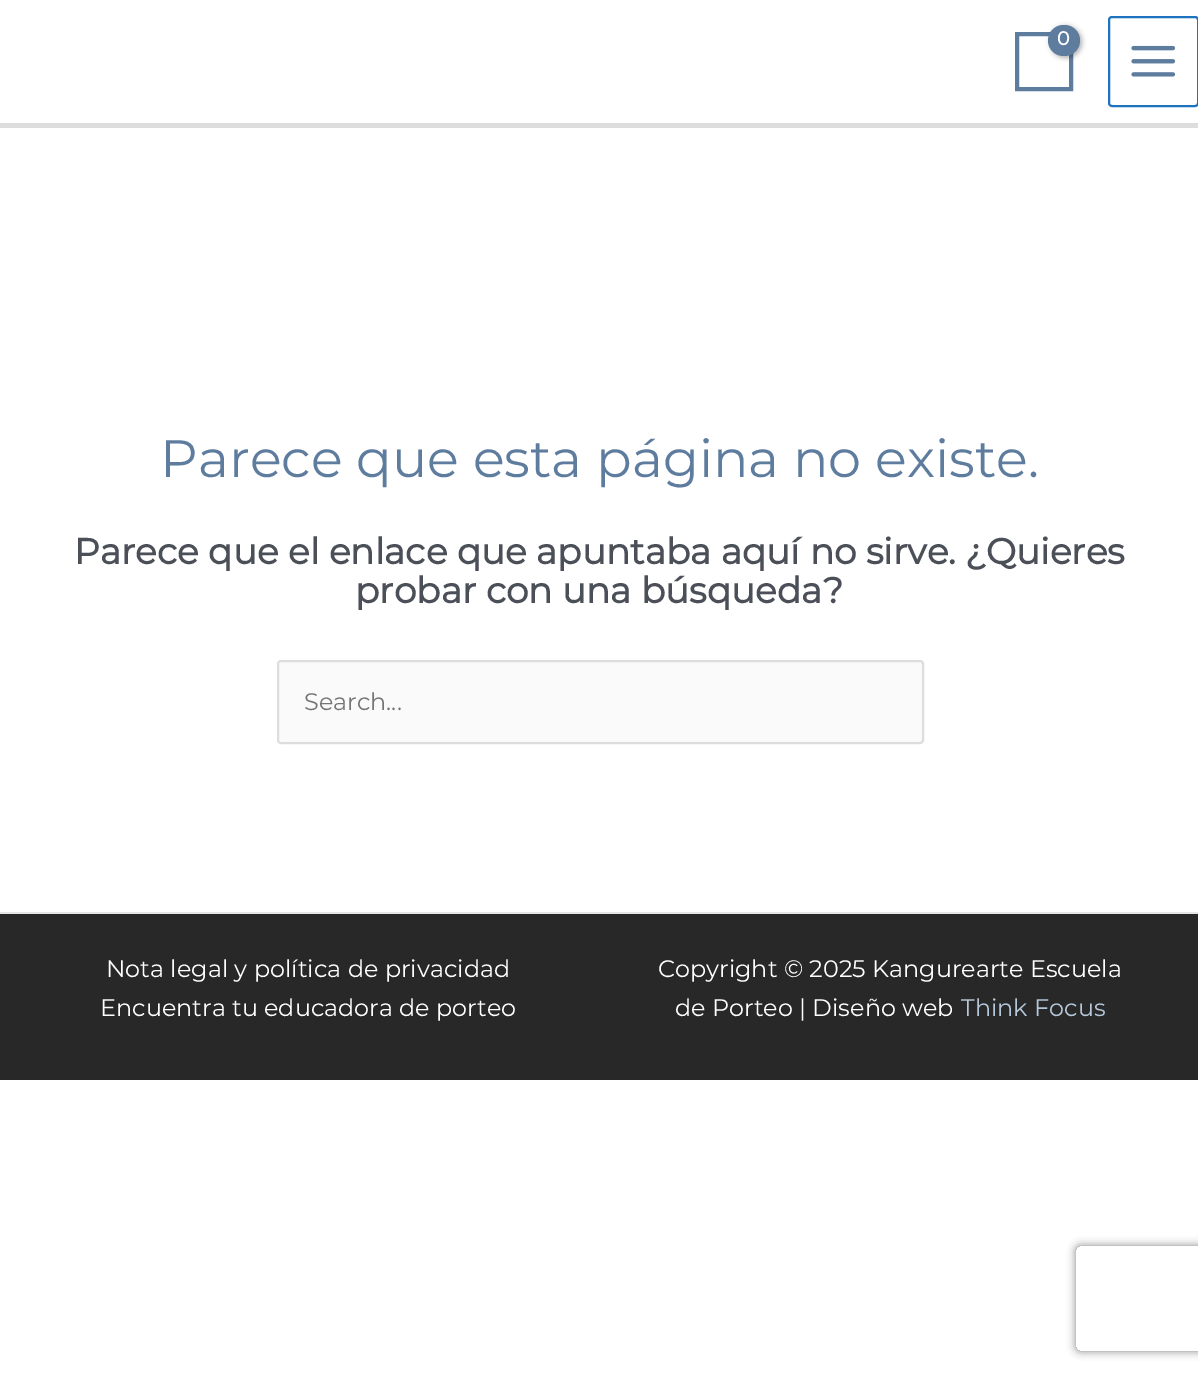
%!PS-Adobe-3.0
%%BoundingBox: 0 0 1198 1374
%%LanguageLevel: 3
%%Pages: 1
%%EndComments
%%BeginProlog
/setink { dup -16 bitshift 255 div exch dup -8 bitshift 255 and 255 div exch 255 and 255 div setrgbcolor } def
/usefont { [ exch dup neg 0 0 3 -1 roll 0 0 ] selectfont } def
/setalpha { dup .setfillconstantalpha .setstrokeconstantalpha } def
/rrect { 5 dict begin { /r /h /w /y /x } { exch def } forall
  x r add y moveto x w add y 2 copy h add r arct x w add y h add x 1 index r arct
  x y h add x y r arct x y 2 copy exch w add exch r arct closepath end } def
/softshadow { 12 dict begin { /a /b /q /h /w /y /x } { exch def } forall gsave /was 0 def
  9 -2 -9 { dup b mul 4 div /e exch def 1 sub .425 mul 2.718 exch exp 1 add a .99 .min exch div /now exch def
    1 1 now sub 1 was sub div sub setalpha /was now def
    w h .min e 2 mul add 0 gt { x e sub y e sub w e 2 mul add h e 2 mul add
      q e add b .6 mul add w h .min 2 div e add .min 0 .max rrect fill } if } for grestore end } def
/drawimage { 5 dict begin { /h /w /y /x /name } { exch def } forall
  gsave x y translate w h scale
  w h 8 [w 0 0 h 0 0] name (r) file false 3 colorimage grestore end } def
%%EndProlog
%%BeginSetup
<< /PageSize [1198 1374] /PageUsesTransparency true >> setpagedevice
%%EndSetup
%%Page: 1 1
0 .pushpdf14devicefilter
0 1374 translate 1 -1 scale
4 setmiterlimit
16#FFFFFF setink
0 0 1198 1374 rectfill
16#DDDDDD setink
0 123 1198 5 rectfill
16#5E7C9E setink
4 setlinewidth
1017 34 54 55 rectstroke
16#000000 setink
1050 26 32 32 16 2.5 0.3 softshadow
16#5E7C9E setink
1048 25 32 31 15.5 rrect fill
/Montserrat-Bold 19 usefont
16#FFFFFF setink
1057 45 moveto -1 0 (0) ashow
16#1E73BE setink
2 setlinewidth
1109 17 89 89 3 rrect stroke
(img1.raw) 1131 45 45 32 drawimage
/Montserrat-Thin 52.5 usefont
16#5E7C9E setink
160 477 moveto (Parece que esta página no existe.) show
/Montserrat-Bold 35.9 usefont
16#4B4F58 setink
74 564 moveto (Parece que el enlace que apuntaba aquí no sirve. ¿Quieres) show
355 603 moveto (probar con una búsqueda?) show
16#FAFAFA setink
278 661 645 82 3 rrect gsave fill grestore
16#DDDDDD setink
stroke
/Montserrat-Thin 23.9 usefont
16#757575 setink
304 710 moveto (Search...) show
16#282828 setink
0 914 1198 166 rectfill
16#E5E5E5 setink
0 912 1198 2 rectfill
16#FFFFFF setink
[
    [(Nota legal y política de privacidad) 106 977]
    [(Encuentra tu educadora de porteo) 100 1016]
    [(Copyright © 2025 Kangurearte Escuela) 658 977]
    [(de Porteo | Diseño web) 675 1016]
] { aload pop moveto show } forall
16#B5C8D9 setink
961 1016 moveto (Think Focus) show
gsave
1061 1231 moveto 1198 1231 lineto 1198 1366 lineto 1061 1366 lineto closepath 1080 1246 moveto 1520 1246 lineto 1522 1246 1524 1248 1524 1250 curveto 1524 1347 lineto 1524 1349 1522 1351 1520 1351 curveto 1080 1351 lineto 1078 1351 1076 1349 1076 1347 curveto 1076 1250 lineto 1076 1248 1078 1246 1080 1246 curveto closepath eoclip newpath
16#808080 setink
1076 1246 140 105 4 4.5 1 softshadow
grestore
.poppdf14devicefilter showpage
%%EOF
